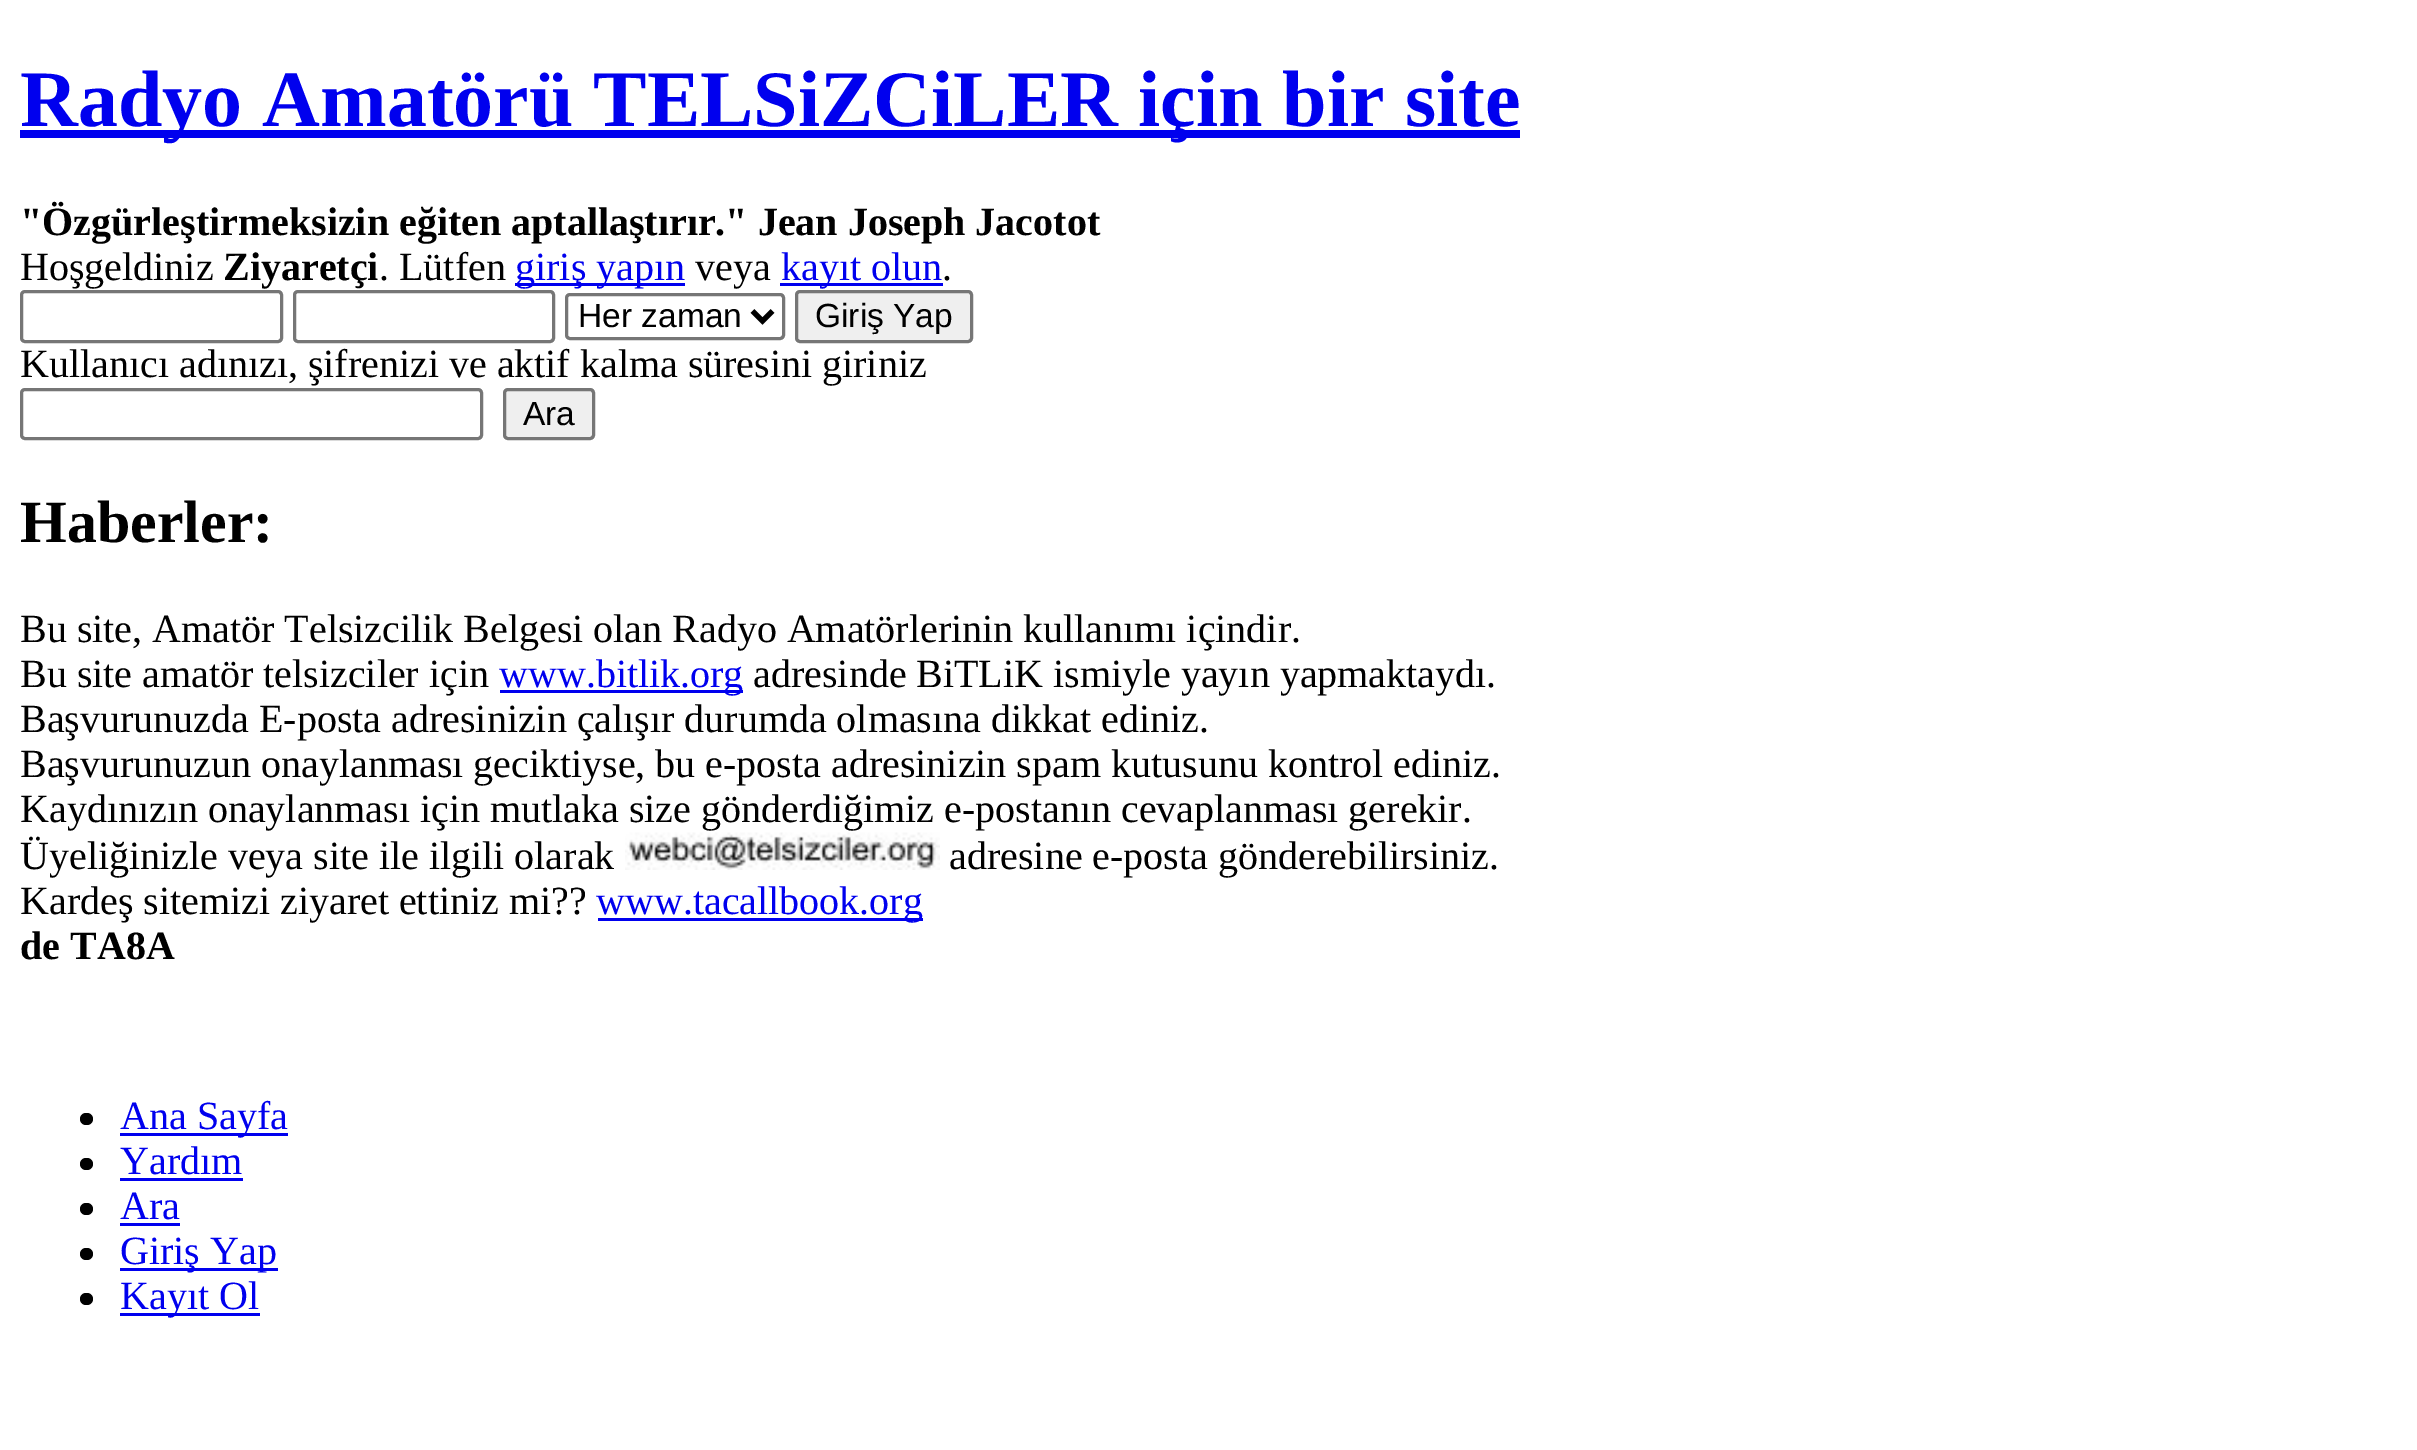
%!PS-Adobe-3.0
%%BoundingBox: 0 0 2417 1450
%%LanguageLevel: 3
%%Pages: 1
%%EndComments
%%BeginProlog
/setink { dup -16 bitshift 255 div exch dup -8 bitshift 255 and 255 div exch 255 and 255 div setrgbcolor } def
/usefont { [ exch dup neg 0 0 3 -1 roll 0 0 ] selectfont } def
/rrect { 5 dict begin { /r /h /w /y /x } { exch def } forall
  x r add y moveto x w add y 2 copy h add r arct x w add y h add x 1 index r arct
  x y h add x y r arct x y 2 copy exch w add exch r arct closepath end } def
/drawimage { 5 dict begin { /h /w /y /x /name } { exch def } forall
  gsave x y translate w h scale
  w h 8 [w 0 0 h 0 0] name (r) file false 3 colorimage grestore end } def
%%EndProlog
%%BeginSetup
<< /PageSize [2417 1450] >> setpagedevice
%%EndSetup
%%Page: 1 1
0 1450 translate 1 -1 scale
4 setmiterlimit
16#FFFFFF setink
0 0 2417 1450 rectfill
16#0000EE setink
20 130 1500 8 rectfill
/LiberationSerif-Bold 80 usefont
20 126 moveto (Radyo Amatörü TELSiZCiLER için bir site) show
/LiberationSerif-Bold 40 usefont
16#000000 setink
20 235 moveto ("Özgürleştirmeksizin eğiten aptallaştırır." Jean Joseph Jacotot) show
/LiberationSerif-Regular 40 usefont
20 280 moveto (Hoşgeldiniz) show
/LiberationSerif-Bold 40 usefont
223 280 moveto (Ziyaretçi) show
/LiberationSerif-Regular 40 usefont
379 280 moveto (. Lütfen) show
16#0000EE setink
515 283 170 3 rectfill
515 280 moveto (giriş yapın) show
16#000000 setink
695 280 moveto (veya) show
16#0000EE setink
780 283 163 3 rectfill
781 280 moveto (kayıt olun) show
16#000000 setink
942 280 moveto (.) show
16#767676 setink
3 setlinewidth
21.5 291.5 260 50 3.5 rrect stroke
294.5 291.5 259 50 3.5 rrect stroke
566.5 294.5 217 44 3.5 rrect stroke
16#000000 setink
5 setlinewidth
752.5 311 moveto 762.5 321 lineto 772.5 311 lineto stroke
/LiberationSans-Regular 33.5 usefont
578 327 moveto (Her zaman) show
16#EFEFEF setink
796.5 291.5 175 50 3.5 rrect gsave fill grestore
16#767676 setink
3 setlinewidth
stroke
16#000000 setink
815 327 moveto (Giriş Yap) show
/LiberationSerif-Regular 40 usefont
20 377 moveto (Kullanıcı adınızı, şifrenizi ve aktif kalma süresini giriniz) show
16#767676 setink
21.5 389.5 460 49 3.5 rrect stroke
16#EFEFEF setink
504.5 389.5 89 49 3.5 rrect gsave fill grestore
16#767676 setink
stroke
/LiberationSans-Regular 33.5 usefont
16#000000 setink
523 425 moveto (Ara) show
/LiberationSerif-Bold 60 usefont
20 542 moveto (Haberler:) show
/LiberationSerif-Regular 40 usefont
20 642 moveto (Bu site, Amatör Telsizcilik Belgesi olan Radyo Amatörlerinin kullanımı içindir.) show
20 687 moveto (Bu site amatör telsizciler için) show
16#0000EE setink
500 690 243 3 rectfill
499 687 moveto (www.bitlik.org) show
16#000000 setink
[
    [(adresinde BiTLiK ismiyle yayın yapmaktaydı.) 753 687]
    [(Başvurunuzda E-posta adresinizin çalışır durumda olmasına dikkat ediniz.) 20 732]
    [(Başvurunuzun onaylanması geciktiyse, bu e-posta adresinizin spam kutusunu kontrol ediniz.) 20 777]
    [(Kaydınızın onaylanması için mutlaka size gönderdiğimiz e-postanın cevaplanması gerekir.) 20 822]
    [(Üyeliğinizle veya site ile ilgili olarak) 20 869]
] { aload pop moveto show } forall
(img1.raw) 625 832 315 38 drawimage
949 869 moveto (adresine e-posta gönderebilirsiniz.) show
20 914 moveto (Kardeş sitemizi ziyaret ettiniz mi??) show
16#0000EE setink
598 918 325 3 rectfill
596 914 moveto (www.tacallbook.org) show
/LiberationSerif-Bold 40 usefont
16#000000 setink
20 959 moveto (de TA8A) show
80 1113 13 12 6 rrect fill
16#0000EE setink
120 1133 168 3 rectfill
/LiberationSerif-Regular 40 usefont
120 1129 moveto (Ana Sayfa) show
16#000000 setink
80 1158 13 12 6 rrect fill
16#0000EE setink
120 1174 moveto (Yardım) show
120 1178 123 3 rectfill
16#000000 setink
80 1203 13 12 6 rrect fill
16#0000EE setink
120 1219 moveto (Ara) show
120 1223 60 3 rectfill
16#000000 setink
80 1248 13 12 6 rrect fill
16#0000EE setink
120 1268 158 3 rectfill
120 1264 moveto (Giriş Yap) show
16#000000 setink
80 1293 13 12 6 rrect fill
16#0000EE setink
120 1313 140 3 rectfill
120 1309 moveto (Kayıt Ol) show
showpage
%%EOF
